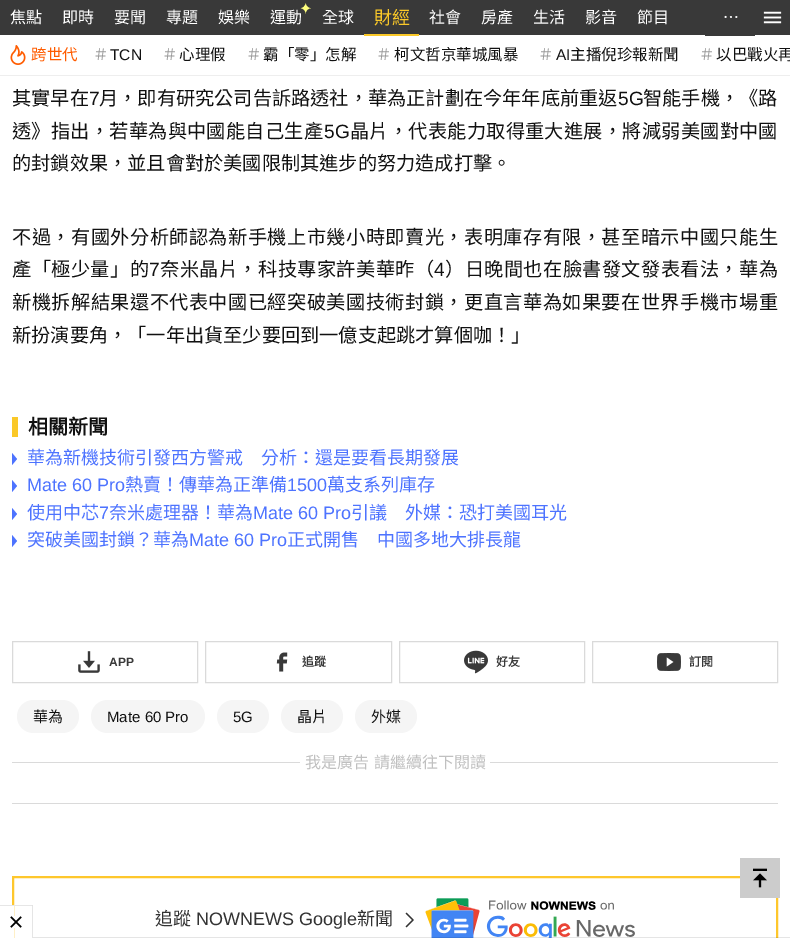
%!PS-Adobe-3.0
%%BoundingBox: 0 0 790 938
%%LanguageLevel: 3
%%Pages: 1
%%EndComments
%%BeginProlog
/setink { dup -16 bitshift 255 div exch dup -8 bitshift 255 and 255 div exch 255 and 255 div setrgbcolor } def
/usefont { [ exch dup neg 0 0 3 -1 roll 0 0 ] selectfont } def
/setalpha { dup .setfillconstantalpha .setstrokeconstantalpha } def
/rrect { 5 dict begin { /r /h /w /y /x } { exch def } forall
  x r add y moveto x w add y 2 copy h add r arct x w add y h add x 1 index r arct
  x y h add x y r arct x y 2 copy exch w add exch r arct closepath end } def
/drawimage { 5 dict begin { /h /w /y /x /name } { exch def } forall
  gsave x y translate w h scale
  w h 8 [w 0 0 h 0 0] name (r) file false 3 colorimage grestore end } def
%%EndProlog
%%BeginSetup
<< /PageSize [790 938] /PageUsesTransparency true >> setpagedevice
%%EndSetup
%%Page: 1 1
0 .pushpdf14devicefilter
0 938 translate 1 -1 scale
4 setmiterlimit
16#FFFFFF setink
0 0 790 938 rectfill
16#393939 setink
0 0 790 35 rectfill
/NotoSansCJKTC-Regular 16 usefont
16#FFFFFF setink
[
    [(焦點) 10 23]
    [(即時) 62 23]
    [(要聞) 114 23]
    [(專題) 166 23]
    [(娛樂) 218 23]
    [(運動) 270 23]
] { aload pop moveto show } forall
/DejaVuSans-Regular 16 usefont
16#FFFF7E setink
299 14 moveto (✦) show
/NotoSansCJKTC-Regular 16 usefont
16#FFFFFF setink
322 23 moveto (全球) show
/NotoSansCJKTC-Regular 18 usefont
16#FAC828 setink
374 24 moveto (財經) show
364 34 55 2 rectfill
/NotoSansCJKTC-Regular 16 usefont
16#FFFFFF setink
[
    [(社會) 429 23]
    [(房產) 481 23]
    [(生活) 533 23]
    [(影音) 585 23]
    [(節目) 637 23]
] { aload pop moveto show } forall
16#393939 setink
705 35 50 1 rectfill
16#FFFFFF setink
723 23 moveto (⋯) show
(img1.raw) 763 11 19 13 drawimage
16#EEEEEE setink
0 75 790 1 rectfill
(img2.raw) 10 45 16 20 drawimage
/NotoSansCJKTC-Regular 15.5 usefont
16#FF5C00 setink
31 60 moveto (跨世代) show
16#999999 setink
93 60 moveto (＃) show
/LiberationSans-Regular 15.5 usefont
16#111111 setink
110 60 moveto (TCN) show
/NotoSansCJKTC-Regular 15.5 usefont
16#999999 setink
162 60 moveto (＃) show
16#111111 setink
179 60 moveto (心理假) show
16#999999 setink
246 60 moveto (＃) show
16#111111 setink
263 60 moveto (霸「零」怎解) show
16#999999 setink
376 60 moveto (＃) show
16#111111 setink
394 60 moveto (柯文哲京華城風暴) show
16#999999 setink
538 60 moveto (＃) show
/LiberationSans-Regular 15.5 usefont
16#111111 setink
556 60 moveto (AI) show
/NotoSansCJKTC-Regular 15.5 usefont
570 60 moveto (主播倪珍報新聞) show
16#999999 setink
699 60 moveto (＃) show
16#111111 setink
716 60 moveto (以巴戰火再) show
/NotoSansCJKTC-Regular 19.2 usefont
12 105 moveto (其實早在) show
/LiberationSans-Regular 19.2 usefont
89 105 moveto (7) show
/NotoSansCJKTC-Regular 19.2 usefont
99 105 moveto (月，即有研究公司告訴路透社，華為正計劃在今年年底前重返) show
/LiberationSans-Regular 19.2 usefont
618 105 moveto (5G) show
/NotoSansCJKTC-Regular 19.2 usefont
643 105 moveto (智能手機，《路) show
12 138 moveto 0.25 0 (透》指出，若華為與中國能自己生產) ashow
/LiberationSans-Regular 19.2 usefont
324 138 moveto 0.25 0 (5G) ashow
/NotoSansCJKTC-Regular 19.2 usefont
350 138 moveto 0.25 0 (晶片，代表能力取得重大進展，將減弱美國對中國) ashow
12 170 moveto (的封鎖效果，並且會對於美國限制其進步的努力造成打擊。) show
12 244 moveto 0.45 0 (不過，有國外分析師認為新手機上市幾小時即賣光，表明庫存有限，甚至暗示中國只能生) ashow
12 276 moveto 0.4 0 (產「極少量」的) ashow
/LiberationSans-Regular 19.2 usefont
149 276 moveto 0.4 0 (7) ashow
/NotoSansCJKTC-Regular 19.2 usefont
160 276 moveto 0.4 0 (奈米晶片，科技專家許美華昨（) ashow
/LiberationSans-Regular 19.2 usefont
434 276 moveto 0.4 0 (4) ashow
/NotoSansCJKTC-Regular 19.2 usefont
445 276 moveto 0.4 0 (）日晚間也在臉書發文發表看法，華為) ashow
12 309 moveto 0.45 0 (新機拆解結果還不代表中國已經突破美國技術封鎖，更直言華為如果要在世界手機市場重) ashow
12 342 moveto (新扮演要角，「一年出貨至少要回到一億支起跳才算個咖！」) show
16#FAC828 setink
12 417 6 20 rectfill
/NotoSansCJKTC-Bold 20 usefont
16#111111 setink
28 434 moveto (相關新聞) show
16#4D73FF setink
12 465 moveto 12 453 lineto 17 459 lineto closepath fill
/NotoSansCJKTC-Regular 18 usefont
27 464 moveto (華為新機技術引發西方警戒　分析：還是要看長期發展) show
12 492 moveto 12 480 lineto 17 486 lineto closepath fill
/LiberationSans-Regular 18 usefont
27 491 moveto (Mate 60 Pro) show
/NotoSansCJKTC-Regular 18 usefont
125 491 moveto (熱賣！傳華為正準備) show
/LiberationSans-Regular 18 usefont
287 491 moveto (1500) show
/NotoSansCJKTC-Regular 18 usefont
327 491 moveto (萬支系列庫存) show
12 520 moveto 12 508 lineto 17 514 lineto closepath fill
27 519 moveto (使用中芯) show
/LiberationSans-Regular 18 usefont
99 519 moveto (7) show
/NotoSansCJKTC-Regular 18 usefont
109 519 moveto (奈米處理器！華為) show
/LiberationSans-Regular 18 usefont
253 519 moveto (Mate 60 Pro) show
/NotoSansCJKTC-Regular 18 usefont
351 519 moveto (引議　外媒：恐打美國耳光) show
12 547 moveto 12 535 lineto 17 541 lineto closepath fill
27 546 moveto (突破美國封鎖？華為) show
/LiberationSans-Regular 18 usefont
189 546 moveto (Mate 60 Pro) show
/NotoSansCJKTC-Regular 18 usefont
287 546 moveto (正式開售　中國多地大排長龍) show
16#DADADA setink
12.5 641.5 185 41 rectstroke
(img3.raw) 78 651 22 22 drawimage
/LiberationSans-Bold 12 usefont
16#393939 setink
109 666 moveto (APP) show
16#DADADA setink
205.5 641.5 186 41 rectstroke
(img4.raw) 276 652 12 20 drawimage
/NotoSansCJKTC-Bold 12 usefont
16#393939 setink
302 666 moveto (追蹤) show
16#DADADA setink
399.5 641.5 185 41 rectstroke
(img5.raw) 464 650 24 24 drawimage
16#393939 setink
496 666 moveto (好友) show
16#DADADA setink
592.5 641.5 185 41 rectstroke
(img6.raw) 657 653 24 18 drawimage
16#393939 setink
689 666 moveto (訂閱) show
16#F5F5F5 setink
17 700 62 33 16.5 rrect fill
/NotoSansCJKTC-Regular 15 usefont
16#111111 setink
33 722 moveto (華為) show
16#F5F5F5 setink
91 700 114 33 16.5 rrect fill
/LiberationSans-Regular 15 usefont
16#111111 setink
107 722 moveto (Mate 60 Pro) show
16#F5F5F5 setink
217 700 52 33 16.5 rrect fill
16#111111 setink
233 722 moveto (5G) show
16#F5F5F5 setink
281 700 62 33 16.5 rrect fill
/NotoSansCJKTC-Regular 15 usefont
16#111111 setink
297 722 moveto (晶片) show
16#F5F5F5 setink
355 700 62 33 16.5 rrect fill
16#111111 setink
371 722 moveto (外媒) show
16#DADADA setink
12 762 288 1 rectfill
/NotoSansCJKTC-Regular 16 usefont
16#C0C0C0 setink
305 768 moveto 1 0 32 (我是廣告 請繼續往下閱讀) widthshow
16#DADADA setink
490 762 288 1 rectfill
12 803 766 1 rectfill
16#FEC72C setink
2 setlinewidth
13 877 764 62 rectstroke
/NotoSansCJKTC-Regular 18 usefont
16#333333 setink
155 925 moveto (追蹤) show
/LiberationSans-Regular 18 usefont
196 925 moveto (NOWNEWS Google) show
/NotoSansCJKTC-Regular 18 usefont
357 925 moveto (新聞) show
1.3 setlinewidth
1 setlinecap
1 setlinejoin
406.5 926.5 moveto 413 920 lineto 406.5 913.5 lineto stroke
(img7.raw) 425 898 210 40 drawimage
16#CCCCCC setink
740 858 40 40 rectfill
(img8.raw) 753 868 14 20 drawimage
0.1 setalpha
16#000000 setink
33 937 757 1 rectfill
1 setalpha
16#FFFFFF setink
12 905 2 33 rectfill
16#E6E6E6 setink
0 905 moveto 33 905 lineto 32 906 lineto 0 906 lineto closepath fill
0.1 setalpha
16#000000 setink
33 905 moveto 33 938 lineto 32 938 lineto 32 906 lineto closepath fill
1 setalpha
(img9.raw) 10 916 12 12 drawimage
.poppdf14devicefilter showpage
%%EOF
